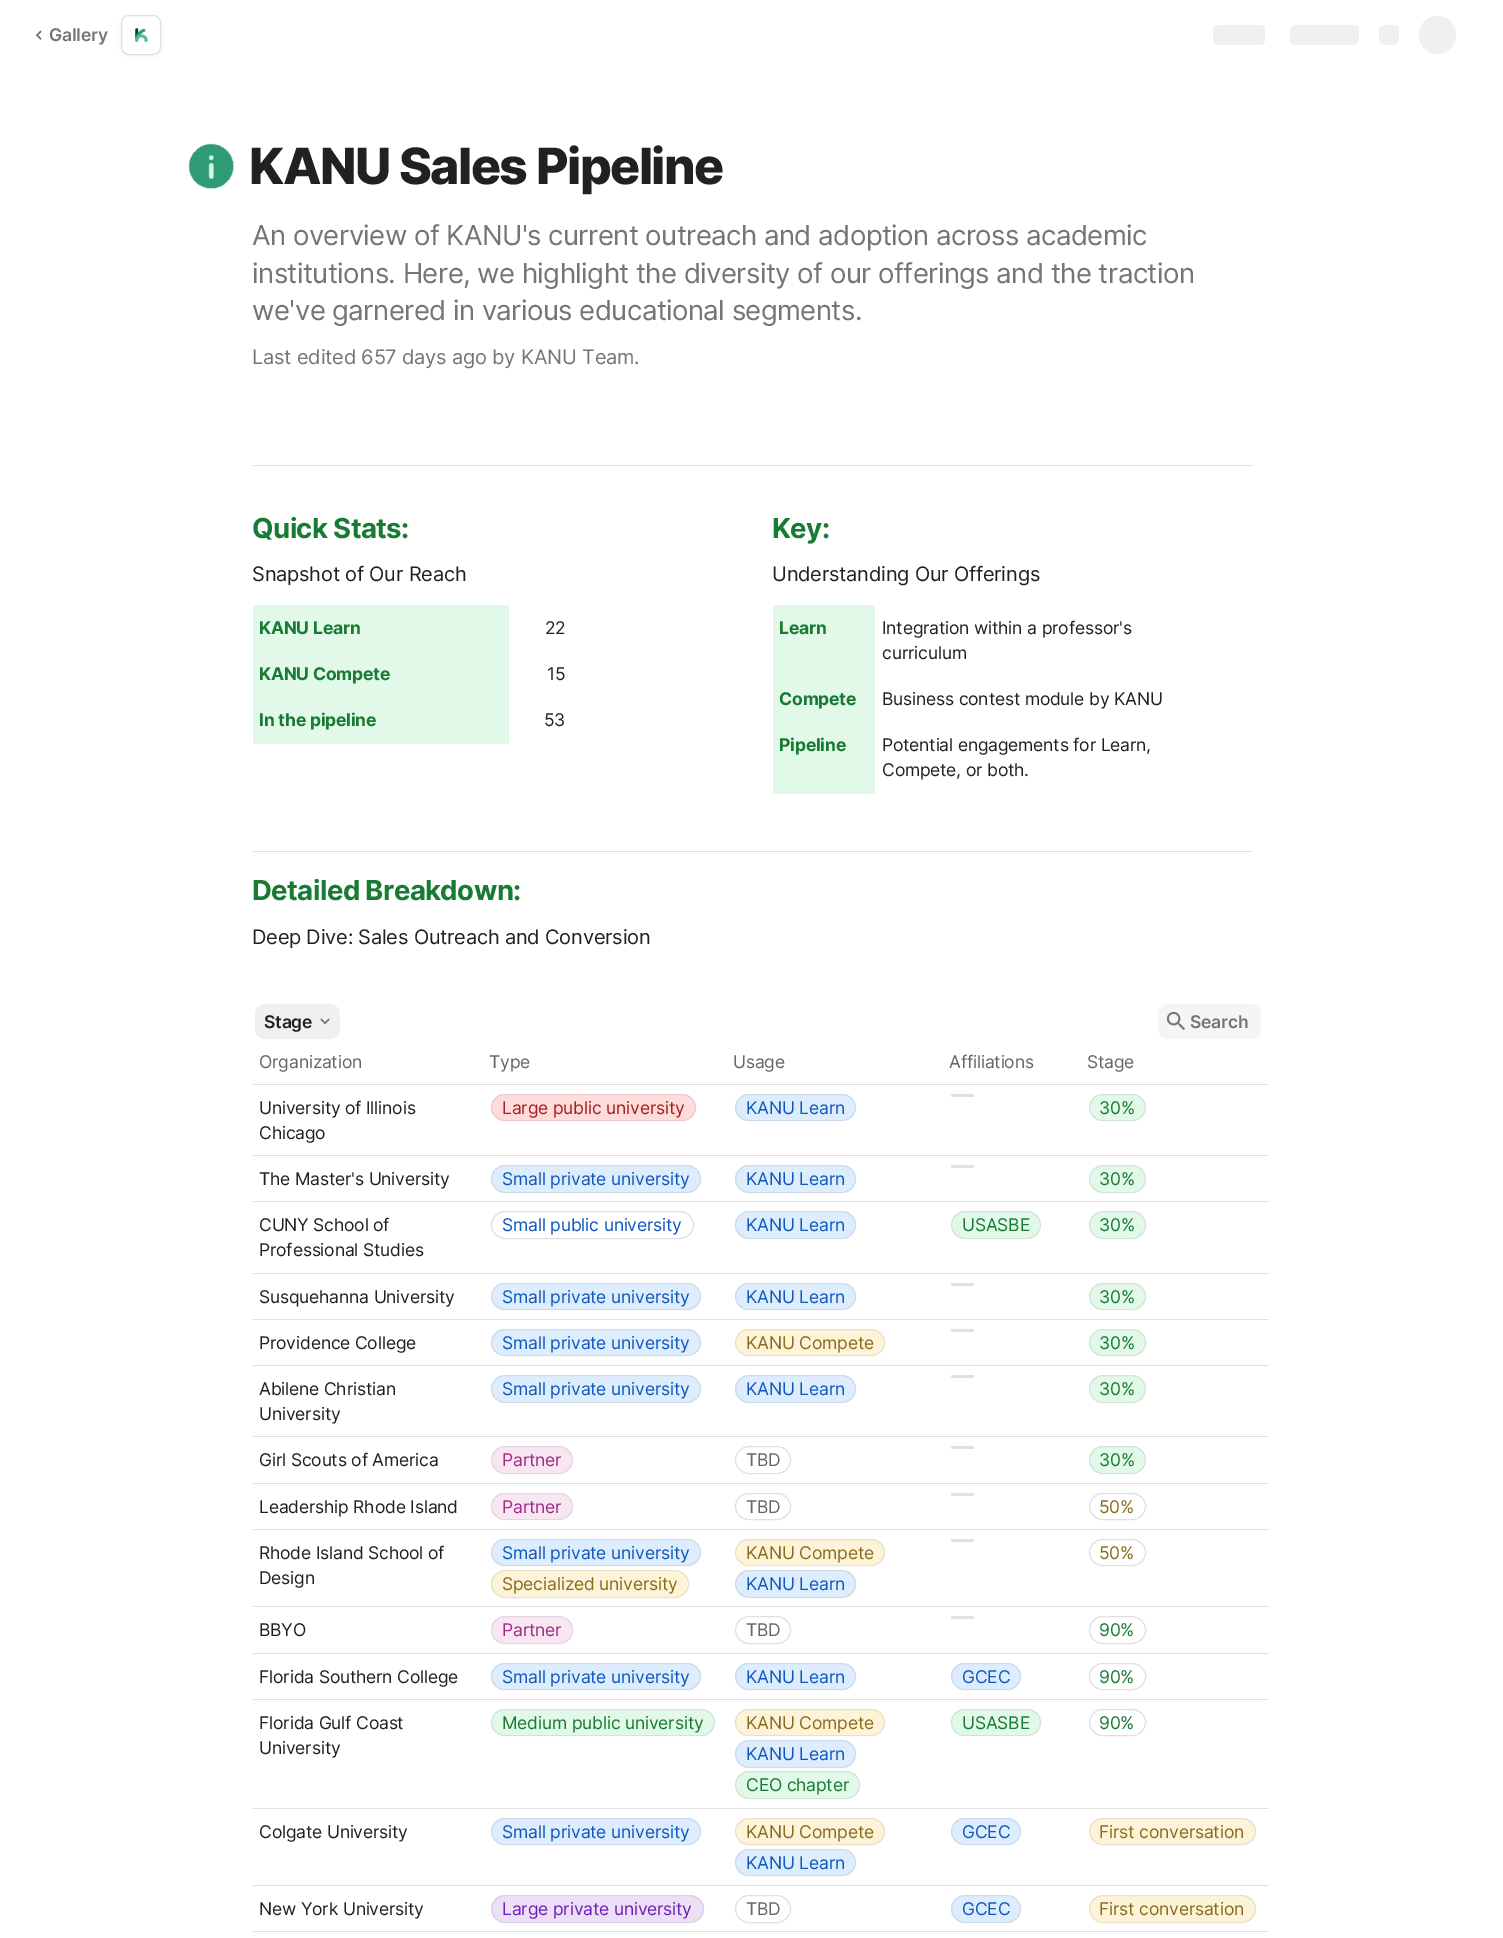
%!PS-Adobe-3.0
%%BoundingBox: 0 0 1503 1938
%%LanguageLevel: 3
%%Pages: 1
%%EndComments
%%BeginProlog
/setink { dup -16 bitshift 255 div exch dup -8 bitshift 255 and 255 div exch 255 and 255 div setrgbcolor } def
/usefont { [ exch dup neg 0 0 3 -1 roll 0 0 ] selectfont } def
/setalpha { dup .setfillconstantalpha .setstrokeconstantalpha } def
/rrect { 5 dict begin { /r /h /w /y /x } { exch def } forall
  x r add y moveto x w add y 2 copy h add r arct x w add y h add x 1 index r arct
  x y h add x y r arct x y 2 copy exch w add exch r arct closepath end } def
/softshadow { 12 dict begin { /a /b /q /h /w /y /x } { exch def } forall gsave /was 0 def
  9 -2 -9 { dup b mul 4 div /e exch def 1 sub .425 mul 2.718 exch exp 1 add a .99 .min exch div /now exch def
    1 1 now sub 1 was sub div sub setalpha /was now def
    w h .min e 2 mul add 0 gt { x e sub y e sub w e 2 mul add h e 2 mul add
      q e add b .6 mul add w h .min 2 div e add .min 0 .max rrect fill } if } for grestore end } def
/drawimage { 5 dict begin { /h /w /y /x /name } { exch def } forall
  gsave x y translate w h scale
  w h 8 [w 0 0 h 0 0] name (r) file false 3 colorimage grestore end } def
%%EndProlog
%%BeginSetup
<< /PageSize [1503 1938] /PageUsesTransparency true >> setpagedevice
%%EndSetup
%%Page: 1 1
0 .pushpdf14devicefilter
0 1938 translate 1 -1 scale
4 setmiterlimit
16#FFFFFF setink
0 0 1503 1938 rectfill
(img1.raw) 35 30 7 10 drawimage
/Inter-SemiBold 17.5 usefont
16#757575 setink
49 41 moveto -0.2 0 (Gallery) ashow
16#000000 setink
121 16 40 40 8 2.5 0.06 softshadow
16#FFFFFF setink
121.5 15.5 39 39 7.5 rrect gsave fill grestore
16#E0E0E0 setink
stroke
(img2.raw) 135 28 13 14 drawimage
16#F0F0F0 setink
1213 25 52 20 5 rrect fill
1290 25 69 20 5 rrect fill
1379 25 20 20 5 rrect fill
1419 16 37 38 18.5 rrect fill
(img3.raw) 188 143 46 46 drawimage
/Inter-ExtraBold 50 usefont
16#212121 setink
249 184 moveto -1.5 0 (KANU Sales Pipeline) ashow
/Inter-Regular 27.5 usefont
16#757575 setink
252 245 moveto -0.55 0 (An overview of KANU's current outreach and adoption across academic) ashow
252 283 moveto -0.55 0 (institutions. Here, we highlight the diversity of our offerings and the traction) ashow
252 320 moveto -0.55 0 (we've garnered in various educational segments.) ashow
/Inter-Regular 20 usefont
252 364 moveto -0.2 0 (Last edited 657 days ago by KANU Team.) ashow
16#E0E0E0 setink
253 465 1000 1 rectfill
/Inter-Bold 27.5 usefont
16#187B34 setink
252 538 moveto -0.55 0 (Quick Stats:) ashow
/Inter-Regular 20 usefont
16#212121 setink
252 581 moveto -0.2 0 (Snapshot of Our Reach) ashow
16#E2F8E8 setink
253 605 256 139 rectfill
/Inter-Bold 17.5 usefont
16#187B34 setink
259 634 moveto -0.2 0 (KANU Learn) ashow
/Inter-Regular 17.5 usefont
16#212121 setink
545 634 moveto -0.2 0 (22) ashow
/Inter-Bold 17.5 usefont
16#187B34 setink
259 680 moveto -0.2 0 (KANU Compete) ashow
/Inter-Regular 17.5 usefont
16#212121 setink
547 680 moveto -0.2 0 (15) ashow
/Inter-Bold 17.5 usefont
16#187B34 setink
259 726 moveto -0.2 0 (In the pipeline) ashow
/Inter-Regular 17.5 usefont
16#212121 setink
544 726 moveto -0.2 0 (53) ashow
/Inter-Bold 27.5 usefont
16#187B34 setink
772 538 moveto -0.55 0 (Key:) ashow
/Inter-Regular 20 usefont
16#212121 setink
772 581 moveto -0.2 0 (Understanding Our Offerings) ashow
16#E2F8E8 setink
773 605 102 189 rectfill
/Inter-Bold 17.5 usefont
16#187B34 setink
779 634 moveto -0.2 0 (Learn) ashow
/Inter-Regular 17.5 usefont
16#212121 setink
882 634 moveto -0.2 0 (Integration within a professor's) ashow
882 659 moveto -0.2 0 (curriculum) ashow
/Inter-Bold 17.5 usefont
16#187B34 setink
779 705 moveto -0.2 0 (Compete) ashow
/Inter-Regular 17.5 usefont
16#212121 setink
882 705 moveto -0.2 0 (Business contest module by KANU) ashow
/Inter-Bold 17.5 usefont
16#187B34 setink
779 751 moveto -0.2 0 (Pipeline) ashow
/Inter-Regular 17.5 usefont
16#212121 setink
882 751 moveto -0.2 0 (Potential engagements for Learn,) ashow
882 776 moveto -0.2 0 (Compete, or both.) ashow
16#E0E0E0 setink
253 851 1000 1 rectfill
/Inter-Bold 27.5 usefont
16#187B34 setink
252 900 moveto -0.55 0 (Detailed Breakdown:) ashow
/Inter-Regular 20 usefont
16#212121 setink
252 944 moveto -0.2 0 (Deep Dive: Sales Outreach and Conversion) ashow
16#F0F0F0 setink
255 1004 85 35 10 rrect fill
/Inter-SemiBold 17.5 usefont
16#212121 setink
264 1028 moveto -0.2 0 (Stage) ashow
(img4.raw) 320 1018 10 7 drawimage
16#F5F5F5 setink
1158 1004 103 35 10 rrect fill
(img5.raw) 1166 1011 19 19 drawimage
16#757575 setink
1190 1028 moveto -0.2 0 (Search) ashow
/Inter-Regular 17.5 usefont
16#666666 setink
259 1068 moveto -0.2 0 (Organization) ashow
489 1068 moveto -0.2 0 (Type) ashow
733 1068 moveto -0.2 0 (Usage) ashow
949 1068 moveto -0.2 0 (Affiliations) ashow
1087 1068 moveto -0.2 0 (Stage) ashow
16#E0E0E0 setink
253 1084 1016 1 rectfill
951 1094 23 3 1.5 rrect fill
253 1155 1016 1 rectfill
16#212121 setink
259 1114 moveto -0.2 0 (University of Illinois) ashow
259 1139 moveto -0.2 0 (Chicago) ashow
16#FFDCDC setink
491 1094 205 27 13.5 rrect fill
0.08 setalpha
16#000000 setink
491.5 1094.5 204 26 13 rrect stroke
1 setalpha
16#A91E1E setink
502 1114 moveto -0.2 0 (Large public university) ashow
16#DDEDFD setink
735 1094 121 27 13.5 rrect fill
0.08 setalpha
16#000000 setink
735.5 1094.5 120 26 13 rrect stroke
1 setalpha
16#0F58BD setink
746 1114 moveto -0.2 0 (KANU Learn) ashow
16#E2F8E8 setink
1089 1094 57 27 13.5 rrect fill
0.08 setalpha
16#000000 setink
1089.5 1094.5 56 26 13 rrect stroke
1 setalpha
16#187B34 setink
1099 1114 moveto -0.2 0 (30%) ashow
16#E0E0E0 setink
951 1165 23 3 1.5 rrect fill
253 1201 1016 1 rectfill
16#212121 setink
259 1185 moveto -0.2 0 (The Master's University) ashow
16#DDEDFD setink
491 1165 210 28 14 rrect fill
0.08 setalpha
16#000000 setink
491.5 1165.5 209 27 13.5 rrect stroke
1 setalpha
16#0F58BD setink
502 1185 moveto -0.2 0 (Small private university) ashow
16#DDEDFD setink
735 1165 121 28 14 rrect fill
0.08 setalpha
16#000000 setink
735.5 1165.5 120 27 13.5 rrect stroke
1 setalpha
16#0F58BD setink
746 1185 moveto -0.2 0 (KANU Learn) ashow
16#E2F8E8 setink
1089 1165 57 28 14 rrect fill
0.08 setalpha
16#000000 setink
1089.5 1165.5 56 27 13.5 rrect stroke
1 setalpha
16#187B34 setink
1099 1185 moveto -0.2 0 (30%) ashow
16#E0E0E0 setink
253 1273 1016 1 rectfill
16#212121 setink
259 1231 moveto -0.2 0 (CUNY School of) ashow
259 1256 moveto -0.2 0 (Professional Studies) ashow
16#E0E0E0 setink
491.5 1211.5 202 27 13.5 rrect stroke
16#0F58BD setink
502 1231 moveto -0.2 0 (Small public university) ashow
16#DDEDFD setink
735 1211 121 28 14 rrect fill
0.08 setalpha
16#000000 setink
735.5 1211.5 120 27 13.5 rrect stroke
1 setalpha
16#0F58BD setink
746 1231 moveto -0.2 0 (KANU Learn) ashow
16#E2F8E8 setink
951 1211 90 28 14 rrect fill
0.08 setalpha
16#000000 setink
951.5 1211.5 89 27 13.5 rrect stroke
1 setalpha
16#187B34 setink
962 1231 moveto -0.2 0 (USASBE) ashow
16#E2F8E8 setink
1089 1211 57 28 14 rrect fill
0.08 setalpha
16#000000 setink
1089.5 1211.5 56 27 13.5 rrect stroke
1 setalpha
16#187B34 setink
1099 1231 moveto -0.2 0 (30%) ashow
16#E0E0E0 setink
951 1283 23 3 1.5 rrect fill
253 1319 1016 1 rectfill
16#212121 setink
259 1303 moveto -0.2 0 (Susquehanna University) ashow
16#DDEDFD setink
491 1283 210 27 13.5 rrect fill
0.08 setalpha
16#000000 setink
491.5 1283.5 209 26 13 rrect stroke
1 setalpha
16#0F58BD setink
502 1303 moveto -0.2 0 (Small private university) ashow
16#DDEDFD setink
735 1283 121 27 13.5 rrect fill
0.08 setalpha
16#000000 setink
735.5 1283.5 120 26 13 rrect stroke
1 setalpha
16#0F58BD setink
746 1303 moveto -0.2 0 (KANU Learn) ashow
16#E2F8E8 setink
1089 1283 57 27 13.5 rrect fill
0.08 setalpha
16#000000 setink
1089.5 1283.5 56 26 13 rrect stroke
1 setalpha
16#187B34 setink
1099 1303 moveto -0.2 0 (30%) ashow
16#E0E0E0 setink
951 1329 23 3 1.5 rrect fill
253 1365 1016 1 rectfill
16#212121 setink
259 1349 moveto -0.2 0 (Providence College) ashow
16#DDEDFD setink
491 1329 210 27 13.5 rrect fill
0.08 setalpha
16#000000 setink
491.5 1329.5 209 26 13 rrect stroke
1 setalpha
16#0F58BD setink
502 1349 moveto -0.2 0 (Small private university) ashow
16#FDF3D8 setink
735 1329 150 27 13.5 rrect fill
0.08 setalpha
16#000000 setink
735.5 1329.5 149 26 13 rrect stroke
1 setalpha
16#8B6C1D setink
746 1349 moveto -0.2 0 (KANU Compete) ashow
16#E2F8E8 setink
1089 1329 57 27 13.5 rrect fill
0.08 setalpha
16#000000 setink
1089.5 1329.5 56 26 13 rrect stroke
1 setalpha
16#187B34 setink
1099 1349 moveto -0.2 0 (30%) ashow
16#E0E0E0 setink
951 1375 23 3 1.5 rrect fill
253 1436 1016 1 rectfill
16#212121 setink
259 1395 moveto -0.2 0 (Abilene Christian) ashow
259 1420 moveto -0.2 0 (University) ashow
16#DDEDFD setink
491 1375 210 28 14 rrect fill
0.08 setalpha
16#000000 setink
491.5 1375.5 209 27 13.5 rrect stroke
1 setalpha
16#0F58BD setink
502 1395 moveto -0.2 0 (Small private university) ashow
16#DDEDFD setink
735 1375 121 28 14 rrect fill
0.08 setalpha
16#000000 setink
735.5 1375.5 120 27 13.5 rrect stroke
1 setalpha
16#0F58BD setink
746 1395 moveto -0.2 0 (KANU Learn) ashow
16#E2F8E8 setink
1089 1375 57 28 14 rrect fill
0.08 setalpha
16#000000 setink
1089.5 1375.5 56 27 13.5 rrect stroke
1 setalpha
16#187B34 setink
1099 1395 moveto -0.2 0 (30%) ashow
16#E0E0E0 setink
951 1446 23 3 1.5 rrect fill
253 1483 1016 1 rectfill
16#212121 setink
259 1466 moveto -0.2 0 (Girl Scouts of America) ashow
16#F8E7F3 setink
491 1446 82 28 14 rrect fill
0.08 setalpha
16#000000 setink
491.5 1446.5 81 27 13.5 rrect stroke
1 setalpha
16#A12B86 setink
502 1466 moveto -0.2 0 (Partner) ashow
16#E0E0E0 setink
735.5 1446.5 55 27 13.5 rrect stroke
16#666666 setink
746 1466 moveto -0.2 0 (TBD) ashow
16#E2F8E8 setink
1089 1446 57 28 14 rrect fill
0.08 setalpha
16#000000 setink
1089.5 1446.5 56 27 13.5 rrect stroke
1 setalpha
16#187B34 setink
1099 1466 moveto -0.2 0 (30%) ashow
16#E0E0E0 setink
951 1493 23 3 1.5 rrect fill
253 1529 1016 1 rectfill
16#212121 setink
259 1513 moveto -0.2 0 (Leadership Rhode Island) ashow
16#F8E7F3 setink
491 1493 82 27 13.5 rrect fill
0.08 setalpha
16#000000 setink
491.5 1493.5 81 26 13 rrect stroke
1 setalpha
16#A12B86 setink
502 1513 moveto -0.2 0 (Partner) ashow
16#E0E0E0 setink
735.5 1493.5 55 26 13 rrect stroke
16#666666 setink
746 1513 moveto -0.2 0 (TBD) ashow
16#E0E0E0 setink
1089.5 1493.5 56 26 13 rrect stroke
16#8B6C1D setink
1099 1513 moveto -0.2 0 (50%) ashow
16#E0E0E0 setink
951 1539 23 3 1.5 rrect fill
253 1606 1016 1 rectfill
16#212121 setink
259 1559 moveto -0.2 0 (Rhode Island School of) ashow
259 1584 moveto -0.2 0 (Design) ashow
16#DDEDFD setink
491 1539 210 27 13.5 rrect fill
0.08 setalpha
16#000000 setink
491.5 1539.5 209 26 13 rrect stroke
1 setalpha
16#0F58BD setink
502 1559 moveto -0.2 0 (Small private university) ashow
16#FDF3D8 setink
491 1570 198 28 14 rrect fill
0.08 setalpha
16#000000 setink
491.5 1570.5 197 27 13.5 rrect stroke
1 setalpha
16#8B6C1D setink
502 1590 moveto -0.2 0 (Specialized university) ashow
16#FDF3D8 setink
735 1539 150 27 13.5 rrect fill
0.08 setalpha
16#000000 setink
735.5 1539.5 149 26 13 rrect stroke
1 setalpha
16#8B6C1D setink
746 1559 moveto -0.2 0 (KANU Compete) ashow
16#DDEDFD setink
735 1570 121 28 14 rrect fill
0.08 setalpha
16#000000 setink
735.5 1570.5 120 27 13.5 rrect stroke
1 setalpha
16#0F58BD setink
746 1590 moveto -0.2 0 (KANU Learn) ashow
16#E0E0E0 setink
1089.5 1539.5 56 26 13 rrect stroke
16#8B6C1D setink
1099 1559 moveto -0.2 0 (50%) ashow
16#E0E0E0 setink
951 1616 23 3 1.5 rrect fill
253 1653 1016 1 rectfill
16#212121 setink
259 1636 moveto -0.2 0 (BBYO) ashow
16#F8E7F3 setink
491 1616 82 28 14 rrect fill
0.08 setalpha
16#000000 setink
491.5 1616.5 81 27 13.5 rrect stroke
1 setalpha
16#A12B86 setink
502 1636 moveto -0.2 0 (Partner) ashow
16#E0E0E0 setink
735.5 1616.5 55 27 13.5 rrect stroke
16#666666 setink
746 1636 moveto -0.2 0 (TBD) ashow
16#E0E0E0 setink
1089.5 1616.5 56 27 13.5 rrect stroke
16#187B34 setink
1099 1636 moveto -0.2 0 (90%) ashow
16#E0E0E0 setink
253 1699 1016 1 rectfill
16#212121 setink
259 1683 moveto -0.2 0 (Florida Southern College) ashow
16#DDEDFD setink
491 1663 210 27 13.5 rrect fill
0.08 setalpha
16#000000 setink
491.5 1663.5 209 26 13 rrect stroke
1 setalpha
16#0F58BD setink
502 1683 moveto -0.2 0 (Small private university) ashow
16#DDEDFD setink
735 1663 121 27 13.5 rrect fill
0.08 setalpha
16#000000 setink
735.5 1663.5 120 26 13 rrect stroke
1 setalpha
16#0F58BD setink
746 1683 moveto -0.2 0 (KANU Learn) ashow
16#DDEDFD setink
951 1663 70 27 13.5 rrect fill
0.08 setalpha
16#000000 setink
951.5 1663.5 69 26 13 rrect stroke
1 setalpha
16#0F58BD setink
962 1683 moveto -0.2 0 (GCEC) ashow
16#E0E0E0 setink
1089.5 1663.5 56 26 13 rrect stroke
16#187B34 setink
1099 1683 moveto -0.2 0 (90%) ashow
16#E0E0E0 setink
253 1808 1016 1 rectfill
16#212121 setink
259 1729 moveto -0.2 0 (Florida Gulf Coast) ashow
259 1754 moveto -0.2 0 (University) ashow
16#E2F8E8 setink
491 1709 224 27 13.5 rrect fill
0.08 setalpha
16#000000 setink
491.5 1709.5 223 26 13 rrect stroke
1 setalpha
16#187B34 setink
502 1729 moveto -0.2 0 (Medium public university) ashow
16#FDF3D8 setink
735 1709 150 27 13.5 rrect fill
0.08 setalpha
16#000000 setink
735.5 1709.5 149 26 13 rrect stroke
1 setalpha
16#8B6C1D setink
746 1729 moveto -0.2 0 (KANU Compete) ashow
16#DDEDFD setink
735 1740 121 28 14 rrect fill
0.08 setalpha
16#000000 setink
735.5 1740.5 120 27 13.5 rrect stroke
1 setalpha
16#0F58BD setink
746 1760 moveto -0.2 0 (KANU Learn) ashow
16#E2F8E8 setink
735 1771 125 28 14 rrect fill
0.08 setalpha
16#000000 setink
735.5 1771.5 124 27 13.5 rrect stroke
1 setalpha
16#187B34 setink
746 1791 moveto -0.2 0 (CEO chapter) ashow
16#E2F8E8 setink
951 1709 90 27 13.5 rrect fill
0.08 setalpha
16#000000 setink
951.5 1709.5 89 26 13 rrect stroke
1 setalpha
16#187B34 setink
962 1729 moveto -0.2 0 (USASBE) ashow
16#E0E0E0 setink
1089.5 1709.5 56 26 13 rrect stroke
16#187B34 setink
1099 1729 moveto -0.2 0 (90%) ashow
16#E0E0E0 setink
253 1885 1016 1 rectfill
16#212121 setink
259 1838 moveto -0.2 0 (Colgate University) ashow
16#DDEDFD setink
491 1818 210 27 13.5 rrect fill
0.08 setalpha
16#000000 setink
491.5 1818.5 209 26 13 rrect stroke
1 setalpha
16#0F58BD setink
502 1838 moveto -0.2 0 (Small private university) ashow
16#FDF3D8 setink
735 1818 150 27 13.5 rrect fill
0.08 setalpha
16#000000 setink
735.5 1818.5 149 26 13 rrect stroke
1 setalpha
16#8B6C1D setink
746 1838 moveto -0.2 0 (KANU Compete) ashow
16#DDEDFD setink
735 1849 121 27 13.5 rrect fill
0.08 setalpha
16#000000 setink
735.5 1849.5 120 26 13 rrect stroke
1 setalpha
16#0F58BD setink
746 1869 moveto -0.2 0 (KANU Learn) ashow
16#DDEDFD setink
951 1818 70 27 13.5 rrect fill
0.08 setalpha
16#000000 setink
951.5 1818.5 69 26 13 rrect stroke
1 setalpha
16#0F58BD setink
962 1838 moveto -0.2 0 (GCEC) ashow
16#FDF3D8 setink
1089 1818 167 27 13.5 rrect fill
0.08 setalpha
16#000000 setink
1089.5 1818.5 166 26 13 rrect stroke
1 setalpha
16#8B6C1D setink
1099 1838 moveto -0.2 0 (First conversation) ashow
16#E0E0E0 setink
253 1931 1016 1 rectfill
16#212121 setink
259 1915 moveto -0.2 0 (New York University) ashow
16#EDDFF6 setink
491 1895 213 28 14 rrect fill
0.08 setalpha
16#000000 setink
491.5 1895.5 212 27 13.5 rrect stroke
1 setalpha
16#6E21BA setink
502 1915 moveto -0.2 0 (Large private university) ashow
16#E0E0E0 setink
735.5 1895.5 55 27 13.5 rrect stroke
16#666666 setink
746 1915 moveto -0.2 0 (TBD) ashow
16#DDEDFD setink
951 1895 70 28 14 rrect fill
0.08 setalpha
16#000000 setink
951.5 1895.5 69 27 13.5 rrect stroke
1 setalpha
16#0F58BD setink
962 1915 moveto -0.2 0 (GCEC) ashow
16#FDF3D8 setink
1089 1895 167 28 14 rrect fill
0.08 setalpha
16#000000 setink
1089.5 1895.5 166 27 13.5 rrect stroke
1 setalpha
16#8B6C1D setink
1099 1915 moveto -0.2 0 (First conversation) ashow
.poppdf14devicefilter showpage
%%EOF
